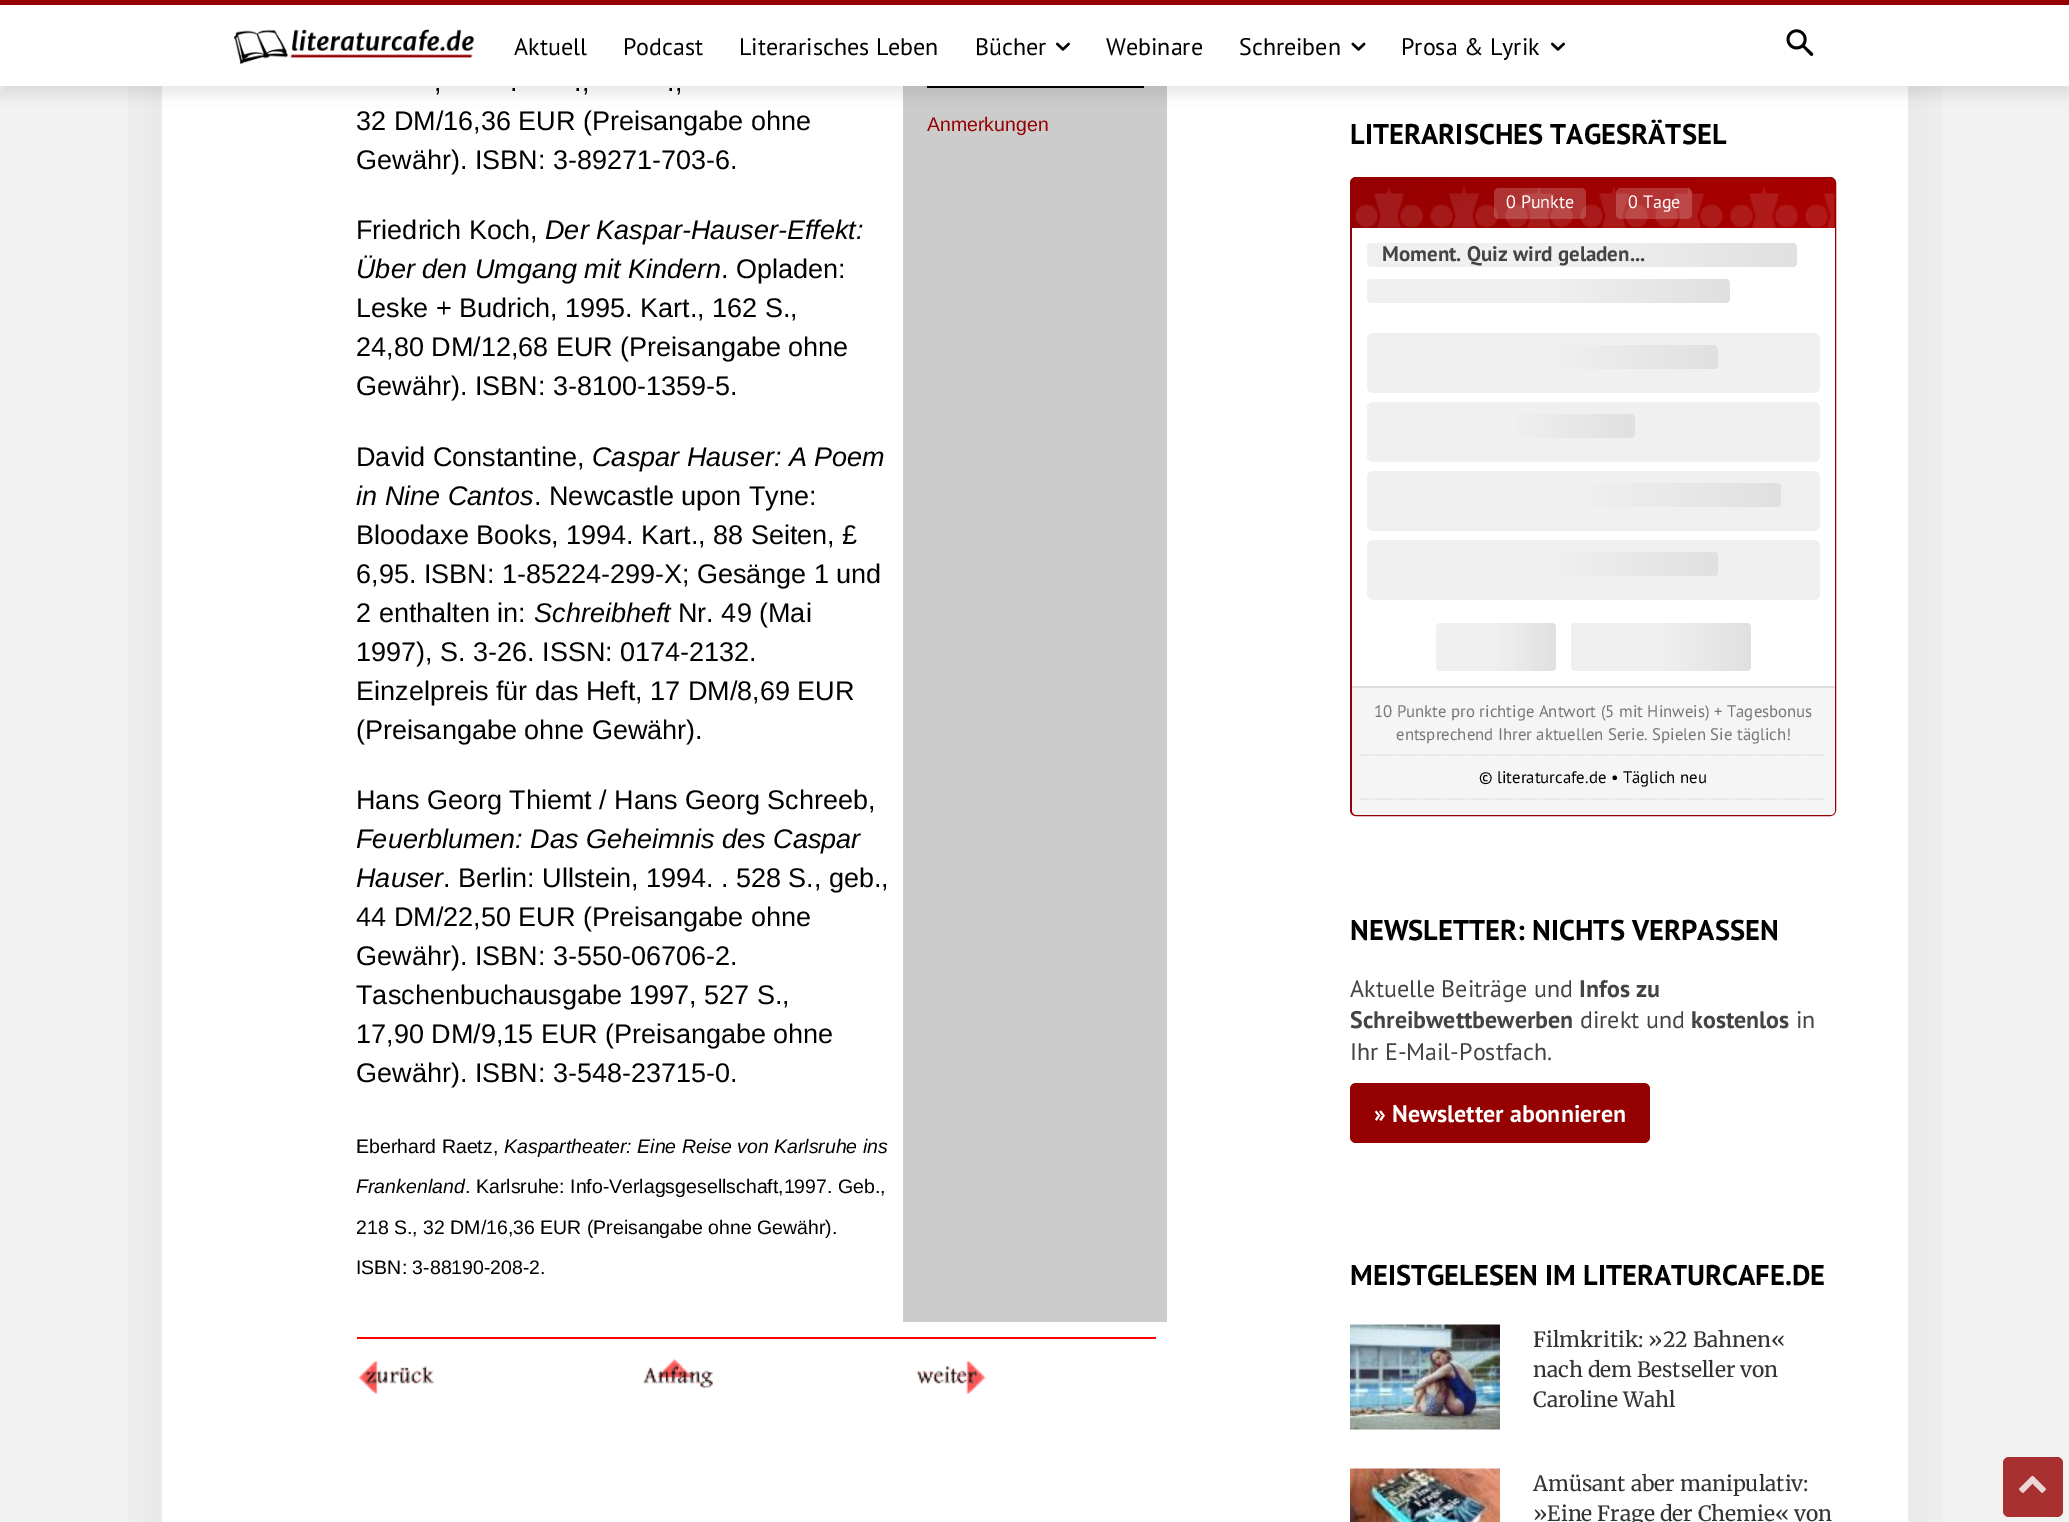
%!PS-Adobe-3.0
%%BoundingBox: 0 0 2069 1522
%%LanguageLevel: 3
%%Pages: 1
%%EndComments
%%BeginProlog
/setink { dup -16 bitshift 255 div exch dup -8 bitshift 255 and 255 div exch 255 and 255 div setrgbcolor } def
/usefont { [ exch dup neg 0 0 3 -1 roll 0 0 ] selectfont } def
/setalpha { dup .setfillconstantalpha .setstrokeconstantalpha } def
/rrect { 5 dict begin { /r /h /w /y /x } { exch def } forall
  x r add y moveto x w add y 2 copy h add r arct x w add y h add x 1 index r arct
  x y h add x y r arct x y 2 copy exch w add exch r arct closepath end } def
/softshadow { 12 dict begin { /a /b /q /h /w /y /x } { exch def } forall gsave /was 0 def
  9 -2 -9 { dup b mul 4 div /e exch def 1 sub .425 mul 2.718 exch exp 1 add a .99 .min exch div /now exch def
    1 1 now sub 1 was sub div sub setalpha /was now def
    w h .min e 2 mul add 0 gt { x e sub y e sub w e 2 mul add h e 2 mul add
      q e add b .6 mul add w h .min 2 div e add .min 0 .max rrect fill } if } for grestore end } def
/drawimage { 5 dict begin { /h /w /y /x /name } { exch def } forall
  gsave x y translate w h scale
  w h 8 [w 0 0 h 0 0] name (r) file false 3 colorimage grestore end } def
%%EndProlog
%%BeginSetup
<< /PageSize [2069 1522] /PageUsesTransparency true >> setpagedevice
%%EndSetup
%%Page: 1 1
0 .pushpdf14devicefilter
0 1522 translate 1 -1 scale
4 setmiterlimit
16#F2F2F2 setink
0 0 2069 1522 rectfill
(img1.raw) 128 86 1814 1436 drawimage
16#FFFFFF setink
0 5 2069 81 rectfill
16#950000 setink
0 0 2069 5 rectfill
(img2.raw) 234 29 240 36 drawimage
[
    [162 86 1746 1436 16#FFFFFF]
    [903 86 264 1236 16#CCCCCC]
    [927 86 217 2 16#000000]
] { aload pop setink rectfill } forall
gsave
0 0 moveto 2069 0 lineto 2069 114 lineto 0 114 lineto closepath 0 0 moveto 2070 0 lineto 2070 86 lineto 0 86 lineto closepath eoclip newpath
0 9 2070 86 0 6 0.08 softshadow
grestore
/PTSans-Regular 24 usefont
[
    [(Aktuell) 514 55]
    [(Podcast) 623 55]
    [(Literarisches Leben) 739 55]
    [(Bücher) 975 55]
] { aload pop moveto show } forall
(img3.raw) 1056 42 14 9 drawimage
1106 55 moveto (Webinare) show
1239 55 moveto (Schreiben) show
(img4.raw) 1351 42 15 9 drawimage
1401 55 moveto (Prosa & Lyrik) show
(img3.raw) 1551 42 14 9 drawimage
(img5.raw) 1786 29 28 27 drawimage
/LiberationSans-Regular 27 usefont
[
    [(,) 434 91]
    [(.) 510 91]
    [(.,) 574 91]
    [(.,) 667 91]
    [(32 DM/16,36 EUR \(Preisangabe ohne) 356 130]
    [(Gewähr\). ISBN: 3-89271-703-6.) 356 169]
    [(Friedrich Koch,) 356 239]
] { aload pop moveto show } forall
/LiberationSans-Italic 27 usefont
545 239 moveto (Der Kaspar-Hauser-Effekt:) show
356 278 moveto (Über den Umgang mit Kindern) show
/LiberationSans-Regular 27 usefont
[
    [(. Opladen:) 721 278]
    [(Leske + Budrich, 1995. Kart., 162 S.,) 356 317]
    [(24,80 DM/12,68 EUR \(Preisangabe ohne) 356 356]
    [(Gewähr\). ISBN: 3-8100-1359-5.) 356 395]
    [(David Constantine,) 356 466]
] { aload pop moveto show } forall
/LiberationSans-Italic 27 usefont
592 466 moveto (Caspar Hauser: A Poem) show
356 505 moveto (in Nine Cantos) show
/LiberationSans-Regular 27 usefont
[
    [(. Newcastle upon Tyne:) 534 505]
    [(Bloodaxe Books, 1994. Kart., 88 Seiten, £) 356 544]
    [(6,95. ISBN: 1-85224-299-X; Gesänge 1 und) 356 583]
    [(2 enthalten in:) 356 622]
] { aload pop moveto show } forall
/LiberationSans-Italic 27 usefont
534 622 moveto (Schreibheft) show
/LiberationSans-Regular 27 usefont
[
    [(Nr. 49 \(Mai) 678 622]
    [(1997\), S. 3-26. ISSN: 0174-2132.) 356 661]
    [(Einzelpreis für das Heft, 17 DM/8,69 EUR) 356 700]
    [(\(Preisangabe ohne Gewähr\).) 356 739]
    [(Hans Georg Thiemt / Hans Georg Schreeb,) 356 809]
] { aload pop moveto show } forall
/LiberationSans-Italic 27 usefont
356 848 moveto (Feuerblumen: Das Geheimnis des Caspar) show
356 887 moveto (Hauser) show
/LiberationSans-Regular 27 usefont
[
    [(. Berlin: Ullstein, 1994. . 528 S., geb.,) 443 887]
    [(44 DM/22,50 EUR \(Preisangabe ohne) 356 926]
    [(Gewähr\). ISBN: 3-550-06706-2.) 356 965]
    [(Taschenbuchausgabe 1997, 527 S.,) 356 1004]
    [(17,90 DM/9,15 EUR \(Preisangabe ohne) 356 1043]
    [(Gewähr\). ISBN: 3-548-23715-0.) 356 1082]
] { aload pop moveto show } forall
/LiberationSans-Regular 19.5 usefont
356 1153 moveto (Eberhard Raetz,) show
/LiberationSans-Italic 19.5 usefont
504 1153 moveto (Kaspartheater: Eine Reise von Karlsruhe ins) show
356 1193 moveto (Frankenland) show
/LiberationSans-Regular 19.5 usefont
[
    [(. Karlsruhe: Info-Verlagsgesellschaft,1997. Geb.,) 465 1193]
    [(218 S., 32 DM/16,36 EUR \(Preisangabe ohne Gewähr\).) 356 1234]
    [(ISBN: 3-88190-208-2.) 356 1274]
] { aload pop moveto show } forall
16#950000 setink
927 131 moveto (Anmerkungen) show
16#FF0000 setink
357 1337 799 2 rectfill
(img6.raw) 358 1360 76 35 drawimage
(img7.raw) 643 1358 70 30 drawimage
(img8.raw) 916 1360 70 35 drawimage
/PTSans-Bold 28.5 usefont
16#000000 setink
1350 144 moveto (LITERARISCHES TAGESRÄTSEL) show
gsave
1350 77 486 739 rectclip
1350 179 486 639 6 2 0.1 softshadow
grestore
16#950000 setink
2 setlinewidth
1351 178 484 637 5 rrect stroke
gsave 1357 179 moveto 1830 179 lineto 1833 179 1835 181 1835 184 curveto 1835 228 lineto 1352 228 lineto 1352 184 lineto 1352 181 1354 179 1357 179 curveto closepath clip newpath
<< /ShadingType 2 /ColorSpace /DeviceRGB /Coords [1460 70 1726 336] /Extend [true true] /Function << /FunctionType 2 /Domain [0 1] /C0 [0.584 0 0] /C1 [0.667 0 0] /N 1 >> >> shfill grestore
(img9.raw) 1355 187 480 41 drawimage
0.2 setalpha
16#FFFFFF setink
1494 188 92 31 5 rrect fill
/PTSans-Regular 18 usefont
1 setalpha
1506 208 moveto (0 Punkte) show
0.2 setalpha
1616 188 76 31 5 rrect fill
1 setalpha
1628 208 moveto (0 Tage) show
1352 228 483 458 rectfill
gsave 1367 243 430 24 6 rrect clip newpath
<< /ShadingType 2 /ColorSpace /DeviceRGB /Coords [1367 255 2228 255] /Extend [true true] /Function << /FunctionType 3 /Domain [0 1] /Functions [<< /FunctionType 2 /Domain [0 1] /C0 [0.941 0.941 0.941] /C1 [0.941 0.941 0.941] /N 1 >> << /FunctionType 2 /Domain [0 1] /C0 [0.941 0.941 0.941] /C1 [0.878 0.878 0.878] /N 1 >> << /FunctionType 2 /Domain [0 1] /C0 [0.878 0.878 0.878] /C1 [0.941 0.941 0.941] /N 1 >> << /FunctionType 2 /Domain [0 1] /C0 [0.941 0.941 0.941] /C1 [0.941 0.941 0.941] /N 1 >>] /Bounds [0.25 0.5 0.75] /Encode [0 1 0 1 0 1 0 1] >> >> shfill grestore
/PTSans-Bold 21 usefont
16#444444 setink
1382 261 moveto (Moment. Quiz wird geladen...) show
gsave 1367 279 363 24 6 rrect clip newpath
<< /ShadingType 2 /ColorSpace /DeviceRGB /Coords [1367 291 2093 291] /Extend [true true] /Function << /FunctionType 3 /Domain [0 1] /Functions [<< /FunctionType 2 /Domain [0 1] /C0 [0.941 0.941 0.941] /C1 [0.941 0.941 0.941] /N 1 >> << /FunctionType 2 /Domain [0 1] /C0 [0.941 0.941 0.941] /C1 [0.878 0.878 0.878] /N 1 >> << /FunctionType 2 /Domain [0 1] /C0 [0.878 0.878 0.878] /C1 [0.941 0.941 0.941] /N 1 >> << /FunctionType 2 /Domain [0 1] /C0 [0.941 0.941 0.941] /C1 [0.941 0.941 0.941] /N 1 >>] /Bounds [0.25 0.5 0.75] /Encode [0 1 0 1 0 1 0 1] >> >> shfill grestore
16#F0F0F0 setink
1367 333 453 60 6 rrect fill
gsave 1385 345 333 24 6 rrect clip newpath
<< /ShadingType 2 /ColorSpace /DeviceRGB /Coords [1385 357 2051 357] /Extend [true true] /Function << /FunctionType 3 /Domain [0 1] /Functions [<< /FunctionType 2 /Domain [0 1] /C0 [0.941 0.941 0.941] /C1 [0.941 0.941 0.941] /N 1 >> << /FunctionType 2 /Domain [0 1] /C0 [0.941 0.941 0.941] /C1 [0.878 0.878 0.878] /N 1 >> << /FunctionType 2 /Domain [0 1] /C0 [0.878 0.878 0.878] /C1 [0.941 0.941 0.941] /N 1 >> << /FunctionType 2 /Domain [0 1] /C0 [0.941 0.941 0.941] /C1 [0.941 0.941 0.941] /N 1 >>] /Bounds [0.25 0.5 0.75] /Encode [0 1 0 1 0 1 0 1] >> >> shfill grestore
1367 402 453 60 6 rrect fill
gsave 1385 414 250 24 6 rrect clip newpath
<< /ShadingType 2 /ColorSpace /DeviceRGB /Coords [1385 426 1886 426] /Extend [true true] /Function << /FunctionType 3 /Domain [0 1] /Functions [<< /FunctionType 2 /Domain [0 1] /C0 [0.941 0.941 0.941] /C1 [0.941 0.941 0.941] /N 1 >> << /FunctionType 2 /Domain [0 1] /C0 [0.941 0.941 0.941] /C1 [0.878 0.878 0.878] /N 1 >> << /FunctionType 2 /Domain [0 1] /C0 [0.878 0.878 0.878] /C1 [0.941 0.941 0.941] /N 1 >> << /FunctionType 2 /Domain [0 1] /C0 [0.941 0.941 0.941] /C1 [0.941 0.941 0.941] /N 1 >>] /Bounds [0.25 0.5 0.75] /Encode [0 1 0 1 0 1 0 1] >> >> shfill grestore
1367 471 453 60 6 rrect fill
gsave 1385 483 396 24 6 rrect clip newpath
<< /ShadingType 2 /ColorSpace /DeviceRGB /Coords [1385 495 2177 495] /Extend [true true] /Function << /FunctionType 3 /Domain [0 1] /Functions [<< /FunctionType 2 /Domain [0 1] /C0 [0.941 0.941 0.941] /C1 [0.941 0.941 0.941] /N 1 >> << /FunctionType 2 /Domain [0 1] /C0 [0.941 0.941 0.941] /C1 [0.878 0.878 0.878] /N 1 >> << /FunctionType 2 /Domain [0 1] /C0 [0.878 0.878 0.878] /C1 [0.941 0.941 0.941] /N 1 >> << /FunctionType 2 /Domain [0 1] /C0 [0.941 0.941 0.941] /C1 [0.941 0.941 0.941] /N 1 >>] /Bounds [0.25 0.5 0.75] /Encode [0 1 0 1 0 1 0 1] >> >> shfill grestore
1367 540 453 60 6 rrect fill
gsave 1385 552 333 24 6 rrect clip newpath
<< /ShadingType 2 /ColorSpace /DeviceRGB /Coords [1385 564 2051 564] /Extend [true true] /Function << /FunctionType 3 /Domain [0 1] /Functions [<< /FunctionType 2 /Domain [0 1] /C0 [0.941 0.941 0.941] /C1 [0.941 0.941 0.941] /N 1 >> << /FunctionType 2 /Domain [0 1] /C0 [0.941 0.941 0.941] /C1 [0.878 0.878 0.878] /N 1 >> << /FunctionType 2 /Domain [0 1] /C0 [0.878 0.878 0.878] /C1 [0.941 0.941 0.941] /N 1 >> << /FunctionType 2 /Domain [0 1] /C0 [0.941 0.941 0.941] /C1 [0.941 0.941 0.941] /N 1 >>] /Bounds [0.25 0.5 0.75] /Encode [0 1 0 1 0 1 0 1] >> >> shfill grestore
gsave 1436 623 120 48 6 rrect clip newpath
<< /ShadingType 2 /ColorSpace /DeviceRGB /Coords [1436 647 1676 647] /Extend [true true] /Function << /FunctionType 3 /Domain [0 1] /Functions [<< /FunctionType 2 /Domain [0 1] /C0 [0.941 0.941 0.941] /C1 [0.941 0.941 0.941] /N 1 >> << /FunctionType 2 /Domain [0 1] /C0 [0.941 0.941 0.941] /C1 [0.878 0.878 0.878] /N 1 >> << /FunctionType 2 /Domain [0 1] /C0 [0.878 0.878 0.878] /C1 [0.941 0.941 0.941] /N 1 >> << /FunctionType 2 /Domain [0 1] /C0 [0.941 0.941 0.941] /C1 [0.941 0.941 0.941] /N 1 >>] /Bounds [0.25 0.5 0.75] /Encode [0 1 0 1 0 1 0 1] >> >> shfill grestore
gsave 1571 623 180 48 6 rrect clip newpath
<< /ShadingType 2 /ColorSpace /DeviceRGB /Coords [1571 647 1931 647] /Extend [true true] /Function << /FunctionType 3 /Domain [0 1] /Functions [<< /FunctionType 2 /Domain [0 1] /C0 [0.941 0.941 0.941] /C1 [0.941 0.941 0.941] /N 1 >> << /FunctionType 2 /Domain [0 1] /C0 [0.941 0.941 0.941] /C1 [0.878 0.878 0.878] /N 1 >> << /FunctionType 2 /Domain [0 1] /C0 [0.878 0.878 0.878] /C1 [0.941 0.941 0.941] /N 1 >> << /FunctionType 2 /Domain [0 1] /C0 [0.941 0.941 0.941] /C1 [0.941 0.941 0.941] /N 1 >>] /Bounds [0.25 0.5 0.75] /Encode [0 1 0 1 0 1 0 1] >> >> shfill grestore
16#F5F5F5 setink
1352 686 moveto 1835 686 lineto 1835 810 lineto 1835 813 1833 815 1830 815 curveto 1357 815 lineto 1354 815 1352 813 1352 810 curveto closepath fill
16#DDDDDD setink
1352 686 483 2 rectfill
1.5 setlinewidth
[1.5 1.5] 0 setdash
1360.5 755 moveto 1825.5 755 lineto stroke
/PTSans-Regular 16.8 usefont
16#777777 setink
1374 717 moveto (10 Punkte pro richtige Antwort \(5 mit Hinweis\) + Tagesbonus) show
1396 740 moveto (entsprechend Ihrer aktuellen Serie. Spielen Sie täglich!) show
16#DDDDDD setink
1360.5 799 moveto 1825.5 799 lineto stroke
16#000000 setink
1479 783 moveto (© literaturcafe.de • Täglich neu) show
/PTSans-Bold 28.5 usefont
1350 940 moveto (NEWSLETTER: NICHTS VERPASSEN) show
/PTSans-Regular 24 usefont
16#444444 setink
1350 997 moveto (Aktuelle Beiträge und) show
/PTSans-Bold 24 usefont
1579 997 moveto (Infos zu) show
1350 1028 moveto (Schreibwettbewerben) show
/PTSans-Regular 24 usefont
1580 1028 moveto (direkt und) show
/PTSans-Bold 24 usefont
1691 1028 moveto (kostenlos) show
/PTSans-Regular 24 usefont
1796 1028 moveto (in) show
1350 1060 moveto (Ihr E-Mail-Postfach.) show
16#950000 setink
1350 1083 300 60 6 rrect fill
/PTSans-Bold 24 usefont
16#FFFFFF setink
1374 1122 moveto (» Newsletter abonnieren) show
/PTSans-Bold 28.5 usefont
16#000000 setink
1350 1285 moveto (MEISTGELESEN IM LITERATURCAFE.DE) show
(img10.raw) 1350 1324 150 106 drawimage
/Merriweather-Regular 21 usefont
16#333333 setink
[
    [(Filmkritik: »22 Bahnen«) 1533 1347]
    [(nach dem Bestseller von) 1533 1377]
    [(Caroline Wahl) 1533 1407]
] { aload pop moveto show } forall
(img11.raw) 1350 1468 150 54 drawimage
1533 1491 moveto (Amüsant aber manipulativ:) show
1533 1521 moveto (»Eine Frage der Chemie« von) show
16#A83030 setink
2003 1457 60 60 6 rrect fill
(img12.raw) 2019 1475 27 18 drawimage
.poppdf14devicefilter showpage
%%EOF
